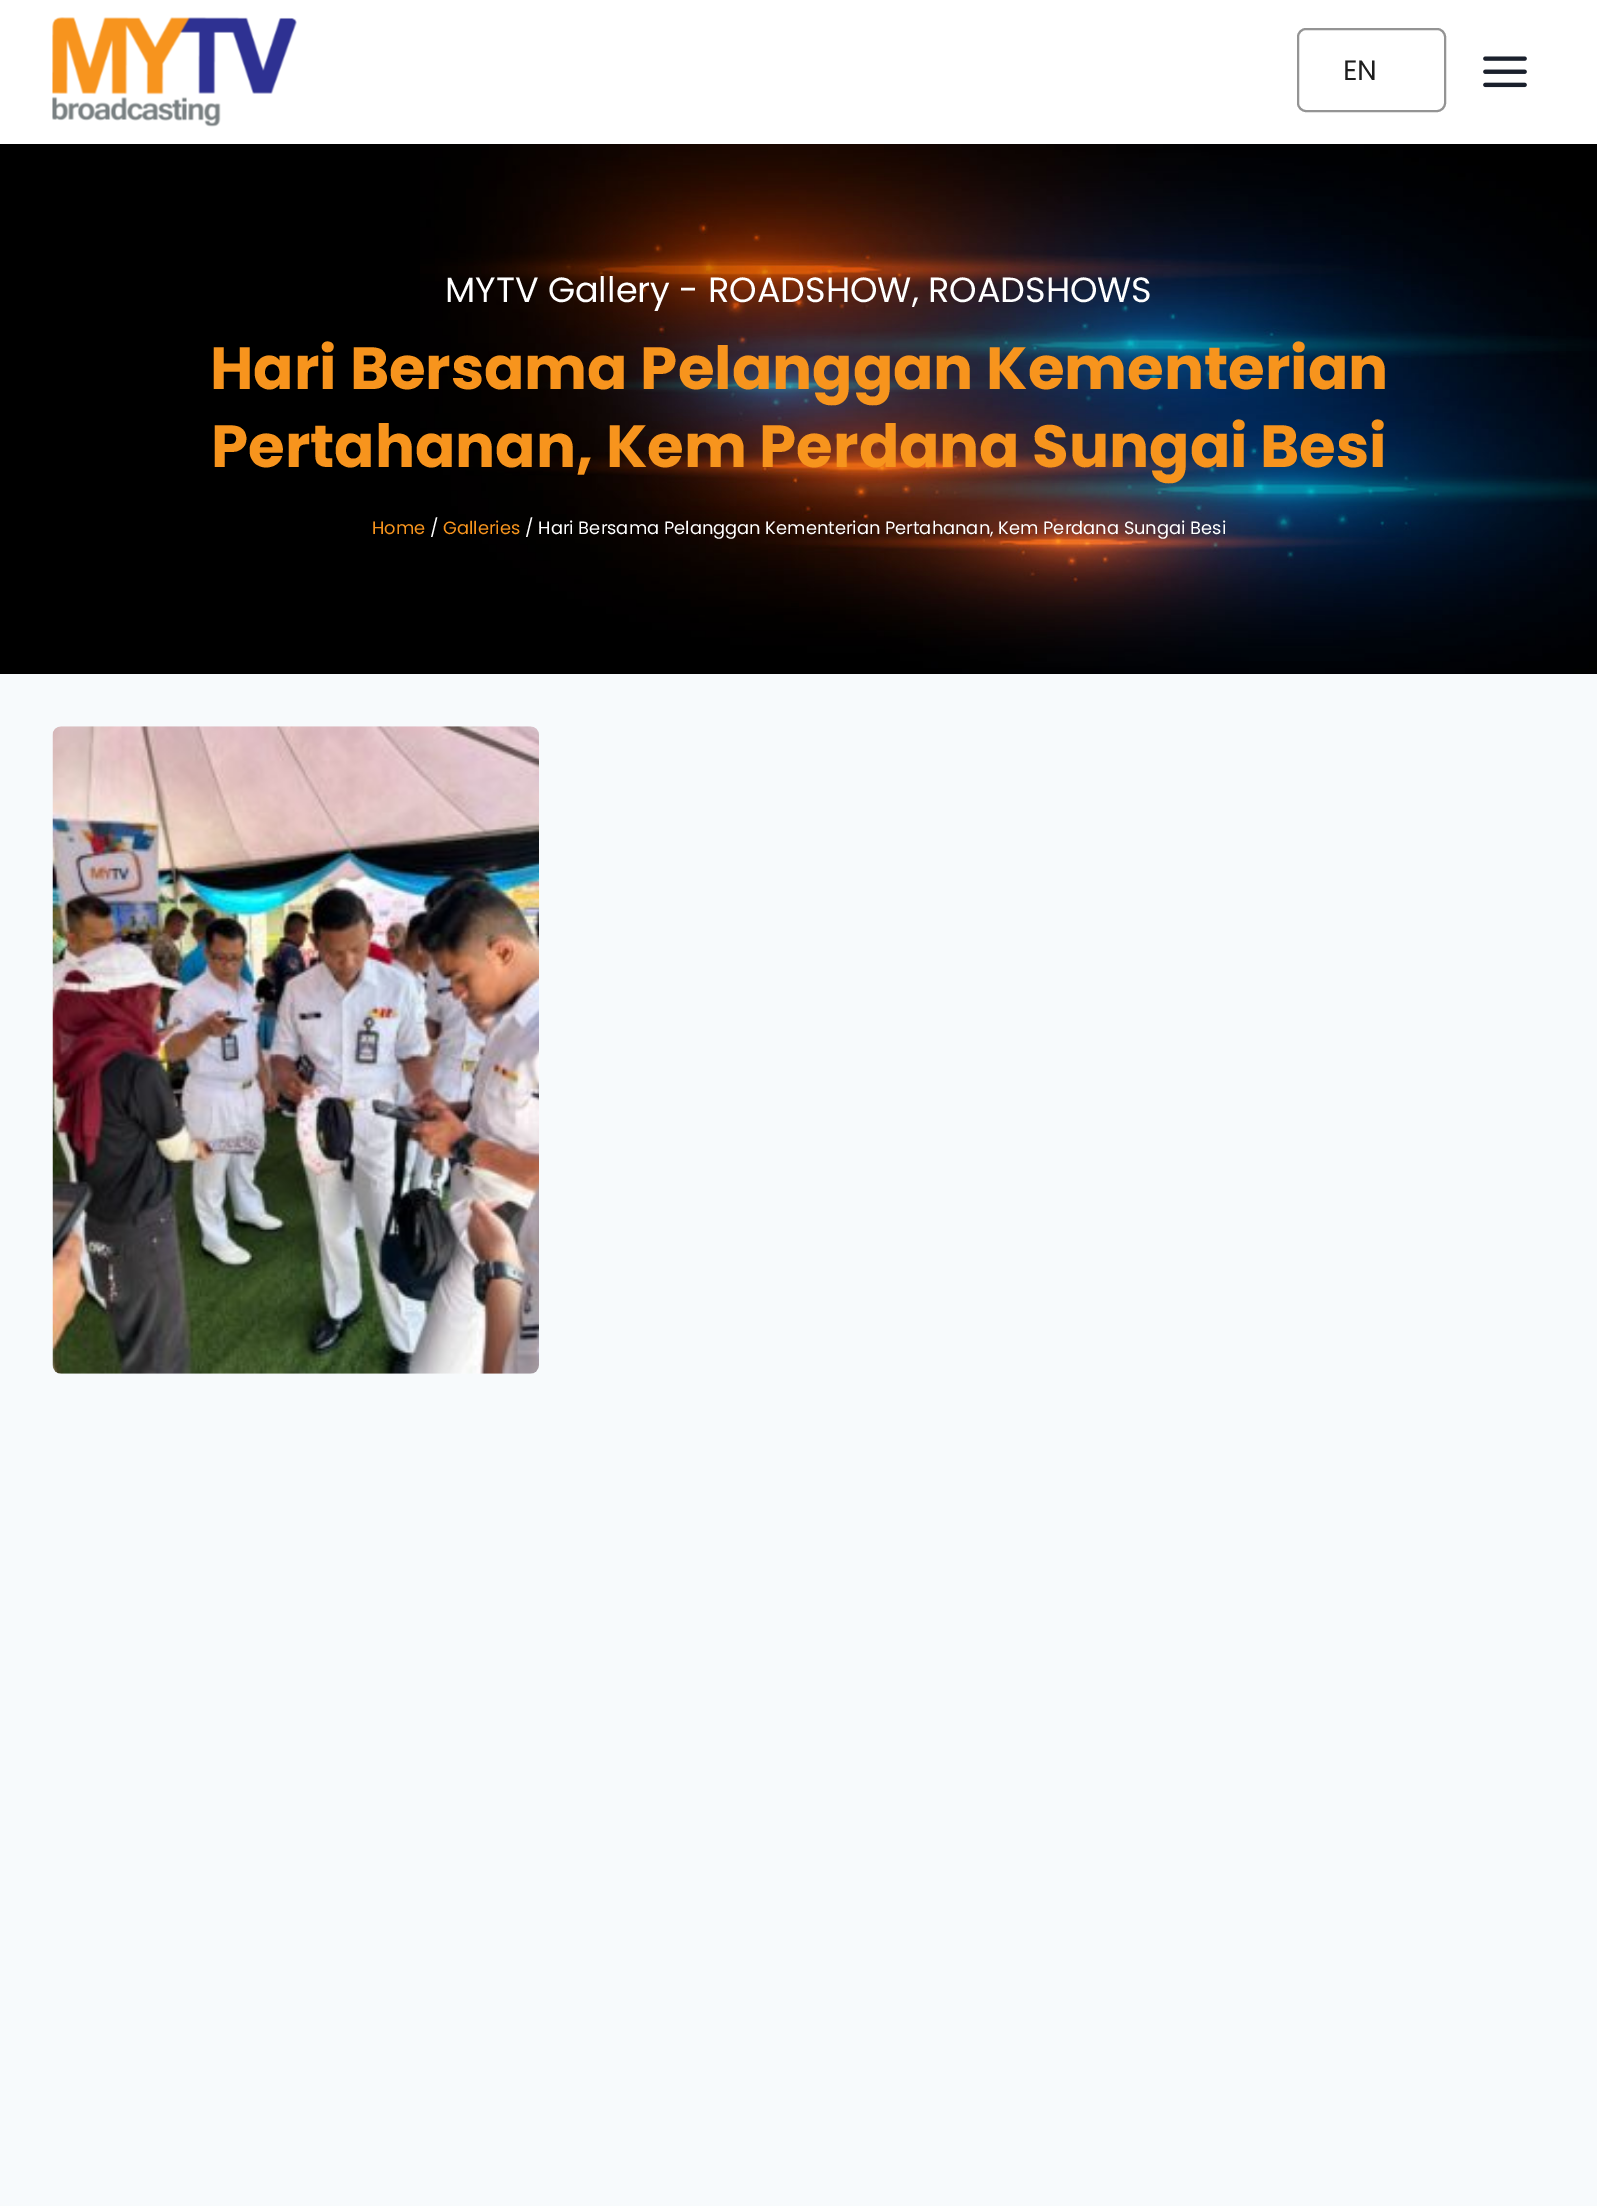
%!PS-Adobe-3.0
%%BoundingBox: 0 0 1597 2206
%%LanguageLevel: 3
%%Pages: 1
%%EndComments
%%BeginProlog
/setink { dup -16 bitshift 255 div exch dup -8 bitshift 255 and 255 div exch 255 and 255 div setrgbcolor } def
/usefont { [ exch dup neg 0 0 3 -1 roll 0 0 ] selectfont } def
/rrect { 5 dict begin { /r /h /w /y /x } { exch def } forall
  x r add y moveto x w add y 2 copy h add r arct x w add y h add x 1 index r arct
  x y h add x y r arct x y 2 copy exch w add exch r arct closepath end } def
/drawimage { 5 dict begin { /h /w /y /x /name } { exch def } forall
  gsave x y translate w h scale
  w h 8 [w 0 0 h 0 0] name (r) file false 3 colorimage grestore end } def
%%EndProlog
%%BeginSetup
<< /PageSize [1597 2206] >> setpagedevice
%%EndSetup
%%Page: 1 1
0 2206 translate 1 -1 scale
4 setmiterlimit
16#F7FAFC setink
0 0 1597 2206 rectfill
16#FFFFFF setink
0 0 1597 144 rectfill
(img1.raw) 52 17 245 110 drawimage
16#949494 setink
2 setlinewidth
1298 29 147 82 8 rrect stroke
/Poppins-Regular 28 usefont
16#1E1E1E setink
1343 80 moveto (EN) show
(img2.raw) 1483 56 44 32 drawimage
16#000000 setink
0 144 1597 530 rectfill
(img3.raw) 420 144 1177 530 drawimage
/Poppins-Regular 35 usefont
16#FFFFFF setink
445 302 moveto (MYTV Gallery - ROADSHOW, ROADSHOWS) show
/Poppins-Bold 59.5 usefont
16#F7941D setink
210 389 moveto (Hari Bersama Pelanggan Kementerian) show
211 467 moveto (Pertahanan, Kem Perdana Sungai Besi) show
/Poppins-Regular 17.85 usefont
372 534 moveto (Home) show
16#FFFFFF setink
430 534 moveto (/) show
16#F7941D setink
443 534 moveto (Galleries) show
16#FFFFFF setink
525 534 moveto (/ Hari Bersama Pelanggan Kementerian Pertahanan, Kem Perdana Sungai Besi) show
(img4.raw) 52 726 487 648 drawimage
showpage
%%EOF
